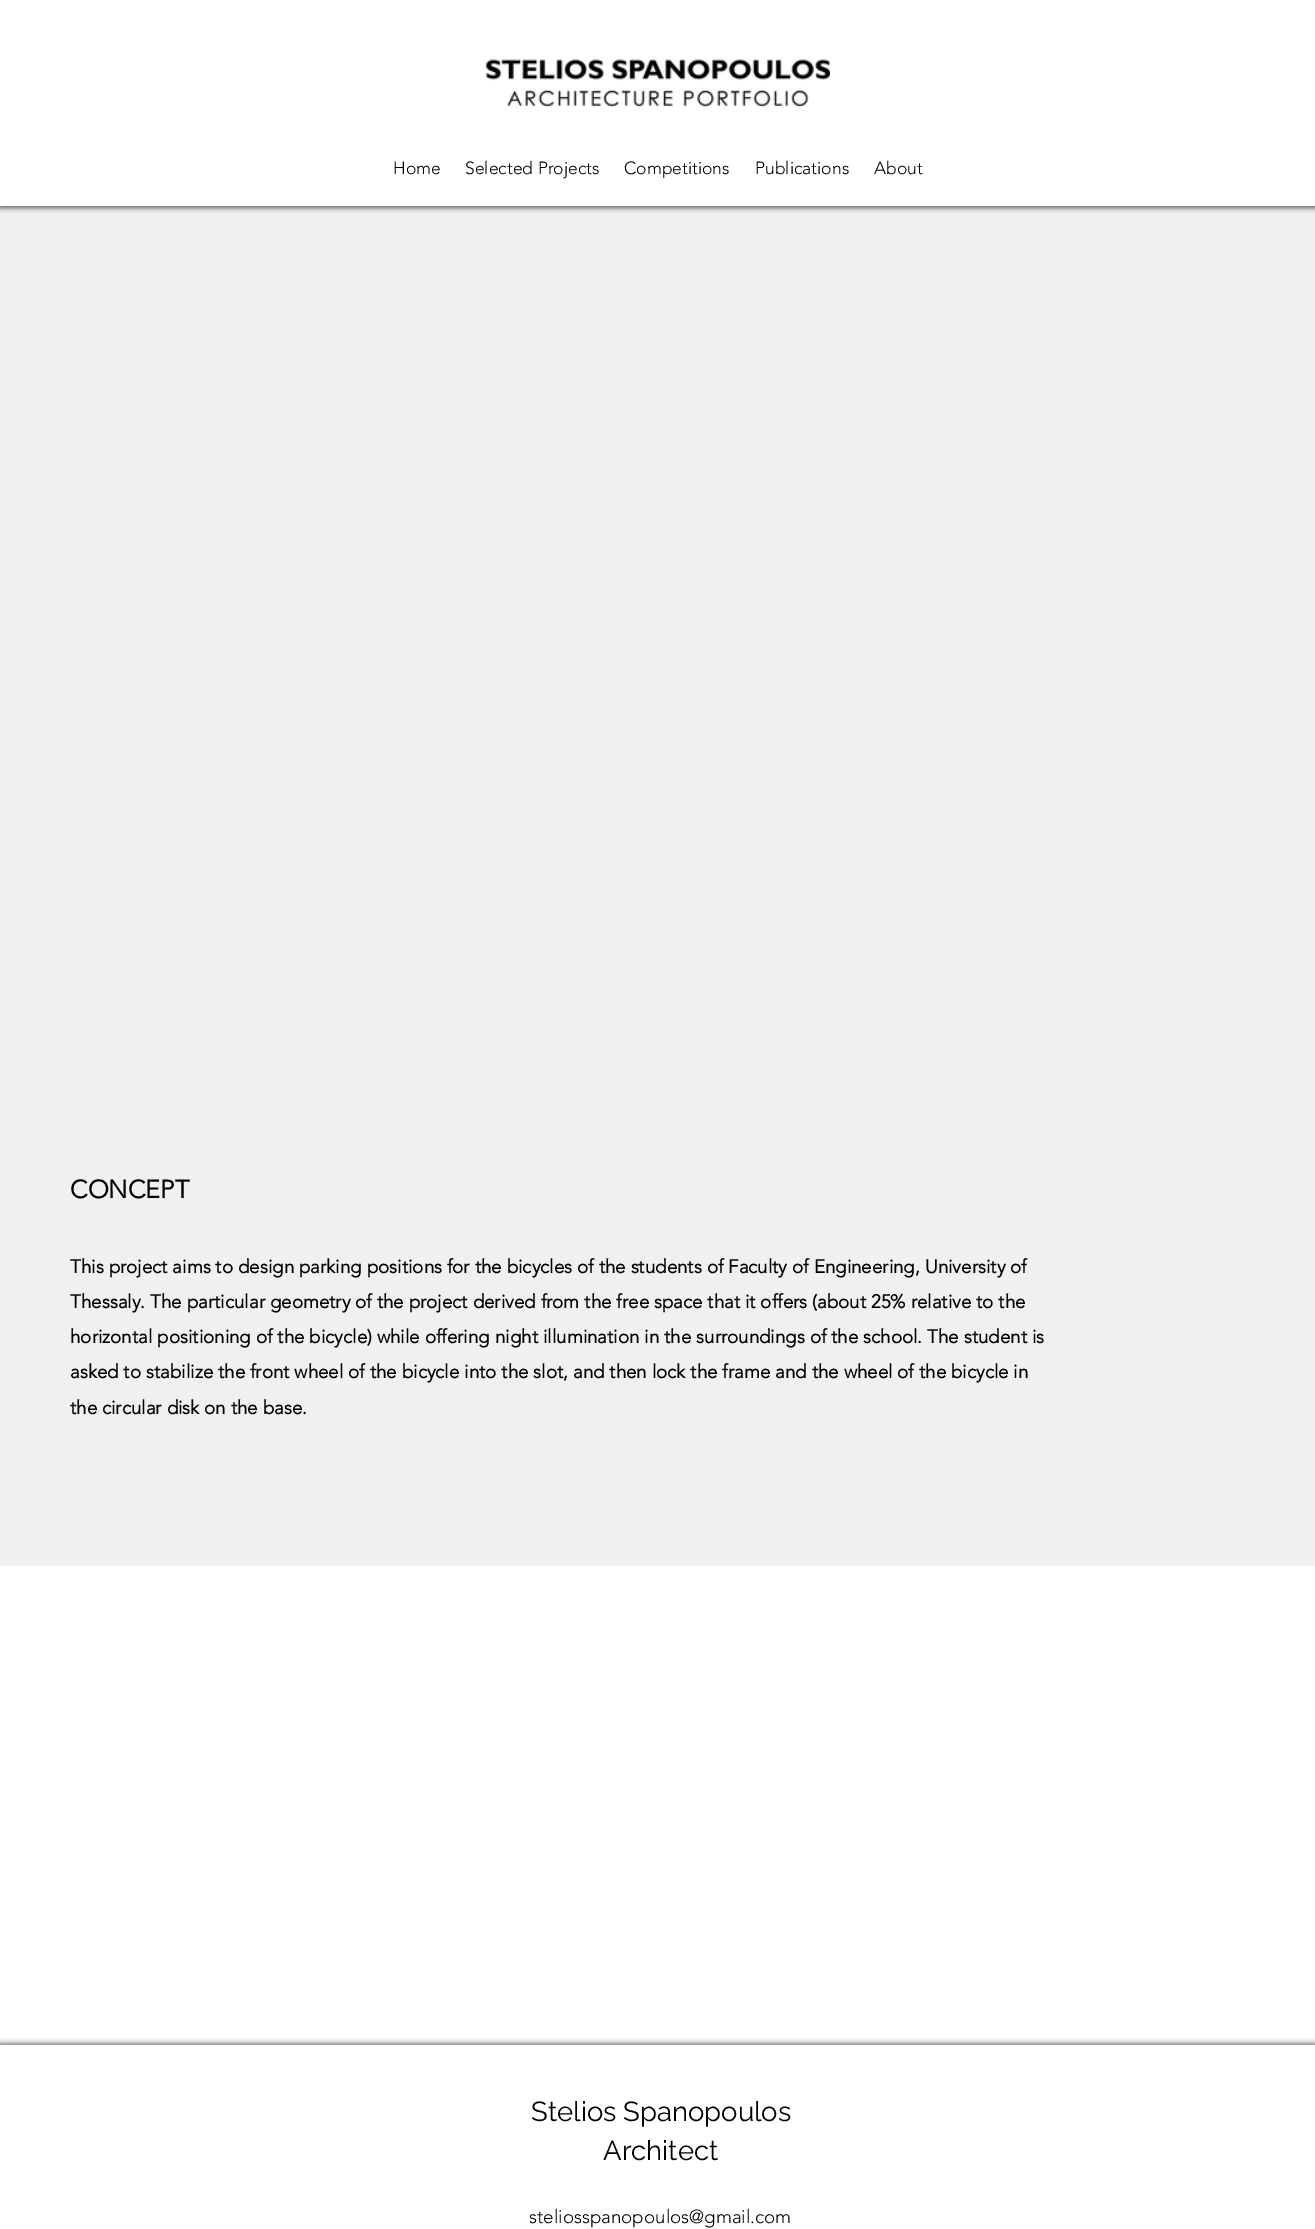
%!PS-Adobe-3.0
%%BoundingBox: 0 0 1315 2229
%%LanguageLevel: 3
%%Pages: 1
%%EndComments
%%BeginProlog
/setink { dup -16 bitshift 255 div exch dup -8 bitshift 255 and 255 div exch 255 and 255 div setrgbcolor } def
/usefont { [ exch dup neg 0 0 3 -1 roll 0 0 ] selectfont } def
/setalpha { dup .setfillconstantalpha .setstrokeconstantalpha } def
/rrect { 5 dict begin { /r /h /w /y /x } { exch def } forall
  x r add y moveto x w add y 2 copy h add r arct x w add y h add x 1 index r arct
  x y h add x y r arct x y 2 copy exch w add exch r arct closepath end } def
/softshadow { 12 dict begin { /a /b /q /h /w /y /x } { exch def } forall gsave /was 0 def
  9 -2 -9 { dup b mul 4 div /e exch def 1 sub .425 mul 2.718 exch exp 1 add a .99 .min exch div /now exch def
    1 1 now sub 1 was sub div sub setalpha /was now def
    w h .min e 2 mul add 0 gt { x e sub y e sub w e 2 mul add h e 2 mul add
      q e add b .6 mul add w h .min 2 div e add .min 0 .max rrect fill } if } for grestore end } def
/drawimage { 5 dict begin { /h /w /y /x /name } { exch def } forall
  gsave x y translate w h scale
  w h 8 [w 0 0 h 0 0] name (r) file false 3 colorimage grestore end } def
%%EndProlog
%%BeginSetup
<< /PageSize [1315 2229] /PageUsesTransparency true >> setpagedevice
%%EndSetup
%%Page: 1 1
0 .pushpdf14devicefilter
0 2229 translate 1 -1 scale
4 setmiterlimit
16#FFFFFF setink
0 0 1315 2229 rectfill
16#F0F0F0 setink
0 206 1315 1360 rectfill
16#000000 setink
0 1 1315 207 0 2.5 0.6 softshadow
16#FFFFFF setink
0 0 1315 206 rectfill
(img1.raw) 485 59 345 48 drawimage
/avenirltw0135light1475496-Light 17.5 usefont
16#000000 setink
[
    [(Home) 393 174]
    [(Selected Projects) 465 174]
    [(Competitions) 624 174]
    [(Publications) 755 174]
    [(About) 874 174]
] { aload pop moveto show } forall
/avenirltw0135light1475496-Bold 25 usefont
70 1198 moveto (CONCEPT) show
/avenirltw0135light1475496-Bold 18.75 usefont
[
    [(This project aims to design parking positions for the bicycles of the students of Faculty of Engineering, University of) 70 1273]
    [(Thessaly. The particular geometry of the project derived from the free space that it offers \(about 25% relative to the) 70 1308]
    [(horizontal positioning of the bicycle\) while offering night illumination in the surroundings of the school. The student is) 70 1343]
    [(asked to stabilize the front wheel of the bicycle into the slot, and then lock the frame and the wheel of the bicycle in) 70 1378]
    [(the circular disk on the base.) 70 1414]
] { aload pop moveto show } forall
gsave
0 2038 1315 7 rectclip
0 2044 1315 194 0 3 0.7 softshadow
grestore
/Raleway-Regular 27.5 usefont
531 2121 moveto (Stelios Spanopoulos) show
603 2160 moveto (Architect) show
/avenirltw0135light1475496-Light 18.75 usefont
529 2223 moveto (steliosspanopoulos@gmail.com) show
.poppdf14devicefilter showpage
%%EOF
